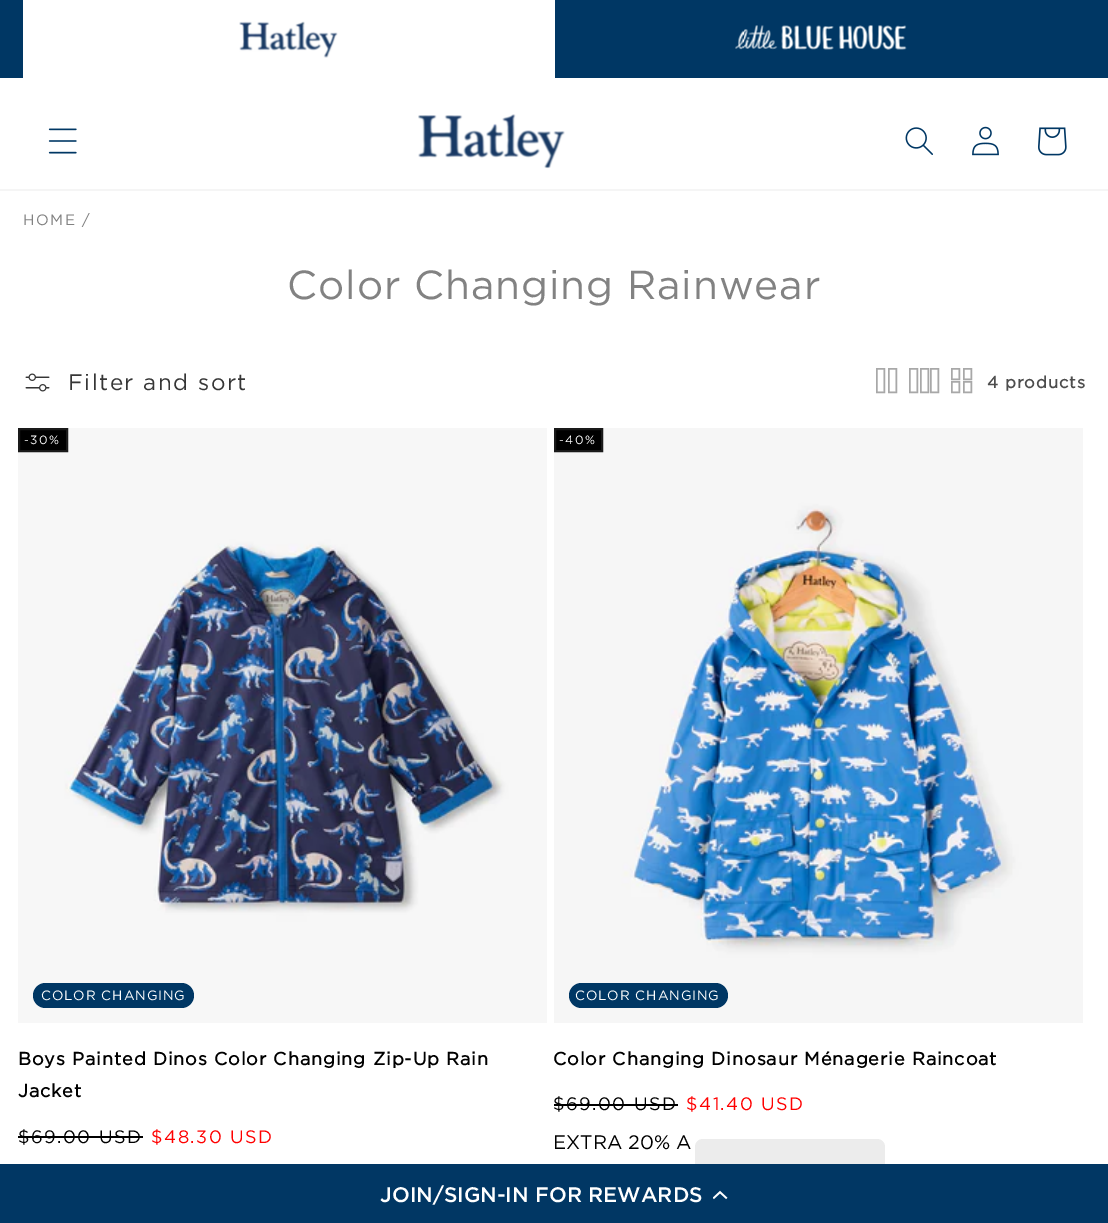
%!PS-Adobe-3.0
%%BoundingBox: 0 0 1108 1223
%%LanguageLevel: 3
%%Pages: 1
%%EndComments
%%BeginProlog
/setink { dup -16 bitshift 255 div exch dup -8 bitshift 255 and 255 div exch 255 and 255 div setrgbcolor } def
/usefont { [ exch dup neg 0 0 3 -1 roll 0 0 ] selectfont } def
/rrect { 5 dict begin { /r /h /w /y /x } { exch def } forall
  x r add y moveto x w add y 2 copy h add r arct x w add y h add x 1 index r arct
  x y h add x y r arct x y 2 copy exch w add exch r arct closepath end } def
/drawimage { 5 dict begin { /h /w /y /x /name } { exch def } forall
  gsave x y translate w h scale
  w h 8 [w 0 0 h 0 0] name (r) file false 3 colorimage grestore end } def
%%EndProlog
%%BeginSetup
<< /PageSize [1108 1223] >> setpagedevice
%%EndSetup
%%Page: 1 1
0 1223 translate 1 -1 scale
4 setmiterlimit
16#FFFFFF setink
0 0 1108 1223 rectfill
16#003764 setink
0 0 1108 78 rectfill
16#FFFFFF setink
23 0 532 78 rectfill
(img1.raw) 239 21 99 37 drawimage
(img2.raw) 735 25 172 25 drawimage
16#F5F5F5 setink
0 189 1108 2 rectfill
(img3.raw) 48 128 29 26 drawimage
(img4.raw) 418 114 147 55 drawimage
(img5.raw) 905 127 28 28 drawimage
(img6.raw) 972 126 27 30 drawimage
(img7.raw) 1038 127 29 29 drawimage
/Gotham-Regular 15 usefont
16#828282 setink
23 225 moveto 1.5 0 (HOME /) ashow
/Gotham-Regular 40.5 usefont
287 299 moveto 0.9 0 (Color Changing Rainwear) ashow
(img8.raw) 25 373 25 19 drawimage
/Gotham-Regular 22.5 usefont
16#363636 setink
68 390 moveto 1.5 0 (Filter and sort) ashow
16#A8A8A8 setink
1.5 setlinewidth
876.75 368.75 7.5 23.5 rectstroke
888.75 368.75 7.5 23.5 rectstroke
909.75 368.75 7.5 23.5 rectstroke
920.75 368.75 7.5 23.5 rectstroke
930.75 368.75 7.5 23.5 rectstroke
951.75 368.75 7.5 10.5 rectstroke
963.75 368.75 7.5 10.5 rectstroke
951.75 381.75 7.5 10.5 rectstroke
963.75 381.75 7.5 10.5 rectstroke
/Gotham-Bold 16.5 usefont
16#4D4D4D setink
987 388 moveto 0.9 0 (4 products) ashow
(img9.raw) 18 428 529 595 drawimage
16#000000 setink
19 429 moveto 67 429 lineto 67 451 lineto 19 451 lineto closepath gsave fill grestore
16#1A1A1A setink
2 setlinewidth
stroke
/Gotham-Regular 12 usefont
16#FFFFFF setink
24 444 moveto 1.5 0 (-30%) ashow
16#003764 setink
33 983 161 25 12.5 rrect fill
/Gotham-Regular 13.5 usefont
16#FFFFFF setink
41 1000 moveto 0.9 0 (COLOR CHANGING) ashow
/Gotham-Bold 18 usefont
16#000000 setink
18 1065 moveto 0.9 0 (Boys Painted Dinos Color Changing Zip-Up Rain) ashow
18 1097 moveto 0.9 0 (Jacket) ashow
/Gotham-Regular 18 usefont
18 1143 moveto 1.5 0 ($69.00 USD) ashow
18 1136 125 2 rectfill
16#FF0000 setink
151 1143 moveto 1.5 0 ($48.30 USD) ashow
(img10.raw) 554 428 529 595 drawimage
16#000000 setink
555 429 moveto 602 429 lineto 602 451 lineto 555 451 lineto closepath gsave fill grestore
16#1A1A1A setink
stroke
/Gotham-Regular 12 usefont
16#FFFFFF setink
559 444 moveto 1.5 0 (-40%) ashow
16#003764 setink
569 983 159 25 12.5 rrect fill
/Gotham-Regular 13.5 usefont
16#FFFFFF setink
575 1000 moveto 0.9 0 (COLOR CHANGING) ashow
/Gotham-Bold 18 usefont
16#000000 setink
553 1065 moveto 0.9 0 (Color Changing Dinosaur Ménagerie Raincoat) ashow
/Gotham-Regular 18 usefont
553 1110 moveto 1.5 0 ($69.00 USD) ashow
554 1104 124 2 rectfill
16#FF0000 setink
686 1110 moveto 1.5 0 ($41.40 USD) ashow
/Gotham-Regular 19.5 usefont
16#000000 setink
553 1149 moveto (EXTRA 20% A) show
16#ECECEC setink
695 1139 190 55 8 rrect fill
16#013764 setink
0 1164 1108 59 rectfill
/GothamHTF-Medium 21 usefont
16#FFFFFF setink
380 1202 moveto (JOIN/SIGN-IN FOR REWARDS) show
(img11.raw) 713 1190 15 10 drawimage
showpage
%%EOF
